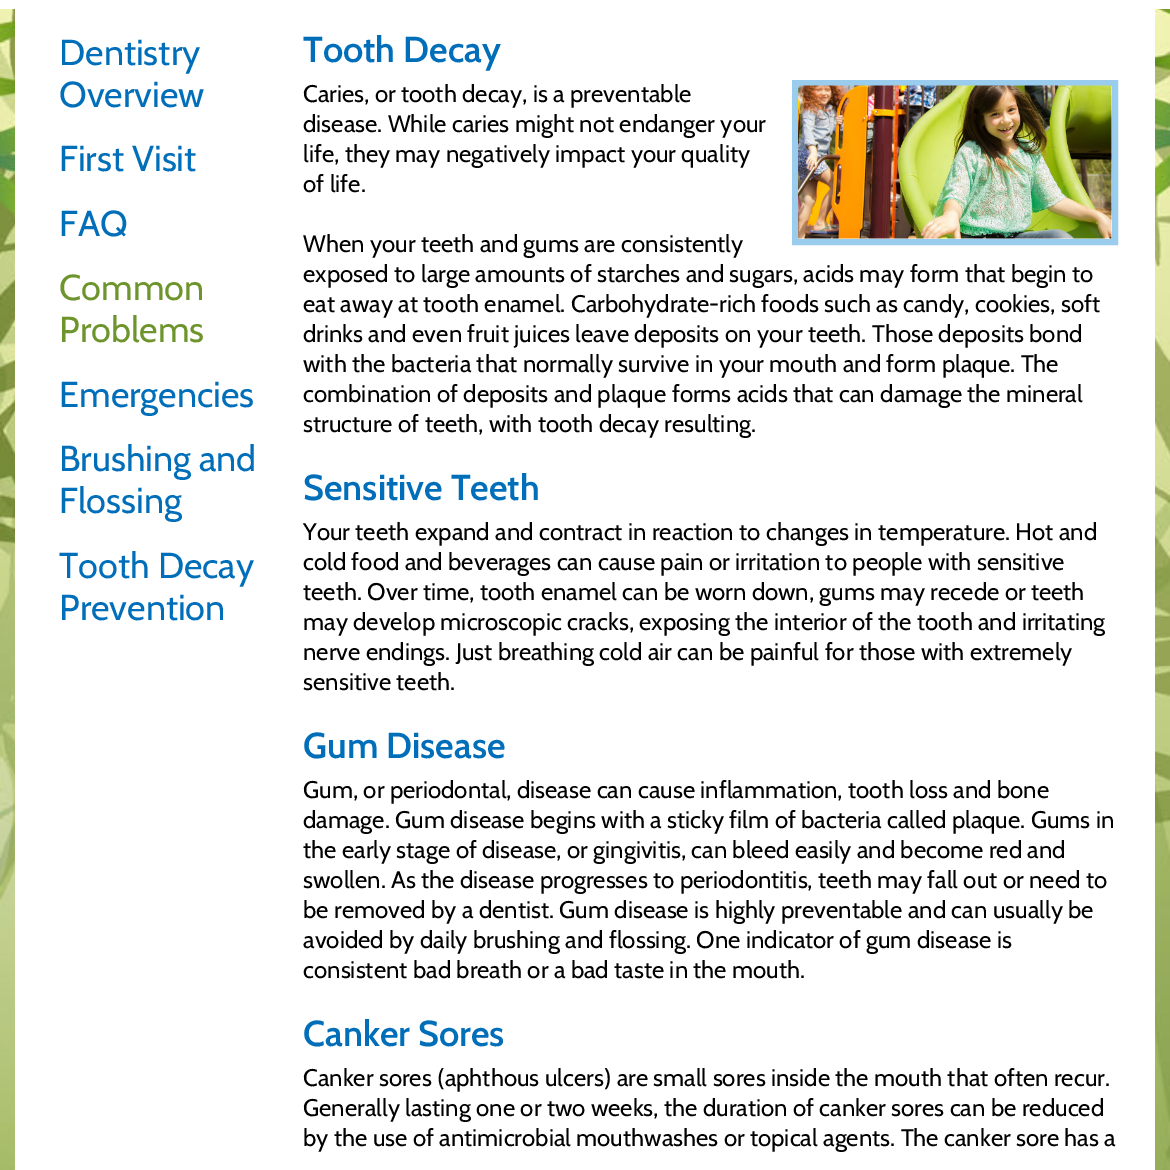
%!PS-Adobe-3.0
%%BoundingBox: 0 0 1170 1170
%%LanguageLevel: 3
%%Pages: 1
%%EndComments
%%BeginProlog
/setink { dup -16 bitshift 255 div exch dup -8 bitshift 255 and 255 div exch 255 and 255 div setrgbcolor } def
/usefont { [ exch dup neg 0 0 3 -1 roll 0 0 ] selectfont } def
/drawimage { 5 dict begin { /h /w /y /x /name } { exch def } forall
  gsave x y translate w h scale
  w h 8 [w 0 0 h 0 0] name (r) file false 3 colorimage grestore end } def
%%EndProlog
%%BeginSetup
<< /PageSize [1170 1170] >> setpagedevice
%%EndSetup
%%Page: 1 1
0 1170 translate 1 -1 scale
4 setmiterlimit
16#FFFFFF setink
0 0 1170 1170 rectfill
(img1.raw) 0 9 1170 1161 drawimage
15 9 1140 1161 rectfill
/Cabin-Regular 36 usefont
16#006EB8 setink
[
    [(Dentistry) 59 65]
    [(Overview) 59 107]
    [(First Visit) 59 171]
    [(FAQ) 59 236]
] { aload pop moveto show } forall
16#6E952D setink
59 300 moveto (Common) show
59 342 moveto (Problems) show
16#006EB8 setink
[
    [(Emergencies) 59 407]
    [(Brushing and) 59 471]
    [(Flossing) 59 513]
    [(Tooth Decay) 59 578]
    [(Prevention) 59 620]
] { aload pop moveto show } forall
/Cabin-SemiBold 36 usefont
303 62 moveto (Tooth Decay) show
/Cabin-Regular 24 usefont
16#000000 setink
303 102 moveto (Caries, or tooth decay, is a preventable) show
16#9ACCEE setink
6 setlinewidth
795 83 320 159 rectstroke
(img2.raw) 798 85 314 154 drawimage
16#000000 setink
[
    [(disease. While caries might not endanger your) 303 132]
    [(life, they may negatively impact your quality) 303 162]
    [(of life.) 303 192]
    [(When your teeth and gums are consistently) 303 252]
    [(exposed to large amounts of starches and sugars, acids may form that begin to) 303 282]
    [(eat away at tooth enamel. Carbohydrate-rich foods such as candy, cookies, soft) 303 312]
    [(drinks and even fruit juices leave deposits on your teeth. Those deposits bond) 303 342]
    [(with the bacteria that normally survive in your mouth and form plaque. The) 303 372]
    [(combination of deposits and plaque forms acids that can damage the mineral) 303 402]
    [(structure of teeth, with tooth decay resulting.) 303 432]
] { aload pop moveto show } forall
/Cabin-SemiBold 36 usefont
16#006EB8 setink
303 500 moveto (Sensitive Teeth) show
/Cabin-Regular 24 usefont
16#000000 setink
[
    [(Your teeth expand and contract in reaction to changes in temperature. Hot and) 303 540]
    [(cold food and beverages can cause pain or irritation to people with sensitive) 303 570]
    [(teeth. Over time, tooth enamel can be worn down, gums may recede or teeth) 303 600]
    [(may develop microscopic cracks, exposing the interior of the tooth and irritating) 303 630]
    [(nerve endings. Just breathing cold air can be painful for those with extremely) 303 660]
    [(sensitive teeth.) 303 690]
] { aload pop moveto show } forall
/Cabin-SemiBold 36 usefont
16#006EB8 setink
303 758 moveto (Gum Disease) show
/Cabin-Regular 24 usefont
16#000000 setink
[
    [(Gum, or periodontal, disease can cause inflammation, tooth loss and bone) 303 798]
    [(damage. Gum disease begins with a sticky film of bacteria called plaque. Gums in) 303 828]
    [(the early stage of disease, or gingivitis, can bleed easily and become red and) 303 858]
    [(swollen. As the disease progresses to periodontitis, teeth may fall out or need to) 303 888]
    [(be removed by a dentist. Gum disease is highly preventable and can usually be) 303 918]
    [(avoided by daily brushing and flossing. One indicator of gum disease is) 303 948]
    [(consistent bad breath or a bad taste in the mouth.) 303 978]
] { aload pop moveto show } forall
/Cabin-SemiBold 36 usefont
16#006EB8 setink
303 1046 moveto (Canker Sores) show
/Cabin-Regular 24 usefont
16#000000 setink
[
    [(Canker sores \(aphthous ulcers\) are small sores inside the mouth that often recur.) 303 1086]
    [(Generally lasting one or two weeks, the duration of canker sores can be reduced) 303 1116]
    [(by the use of antimicrobial mouthwashes or topical agents. The canker sore has a) 303 1146]
] { aload pop moveto show } forall
showpage
%%EOF
